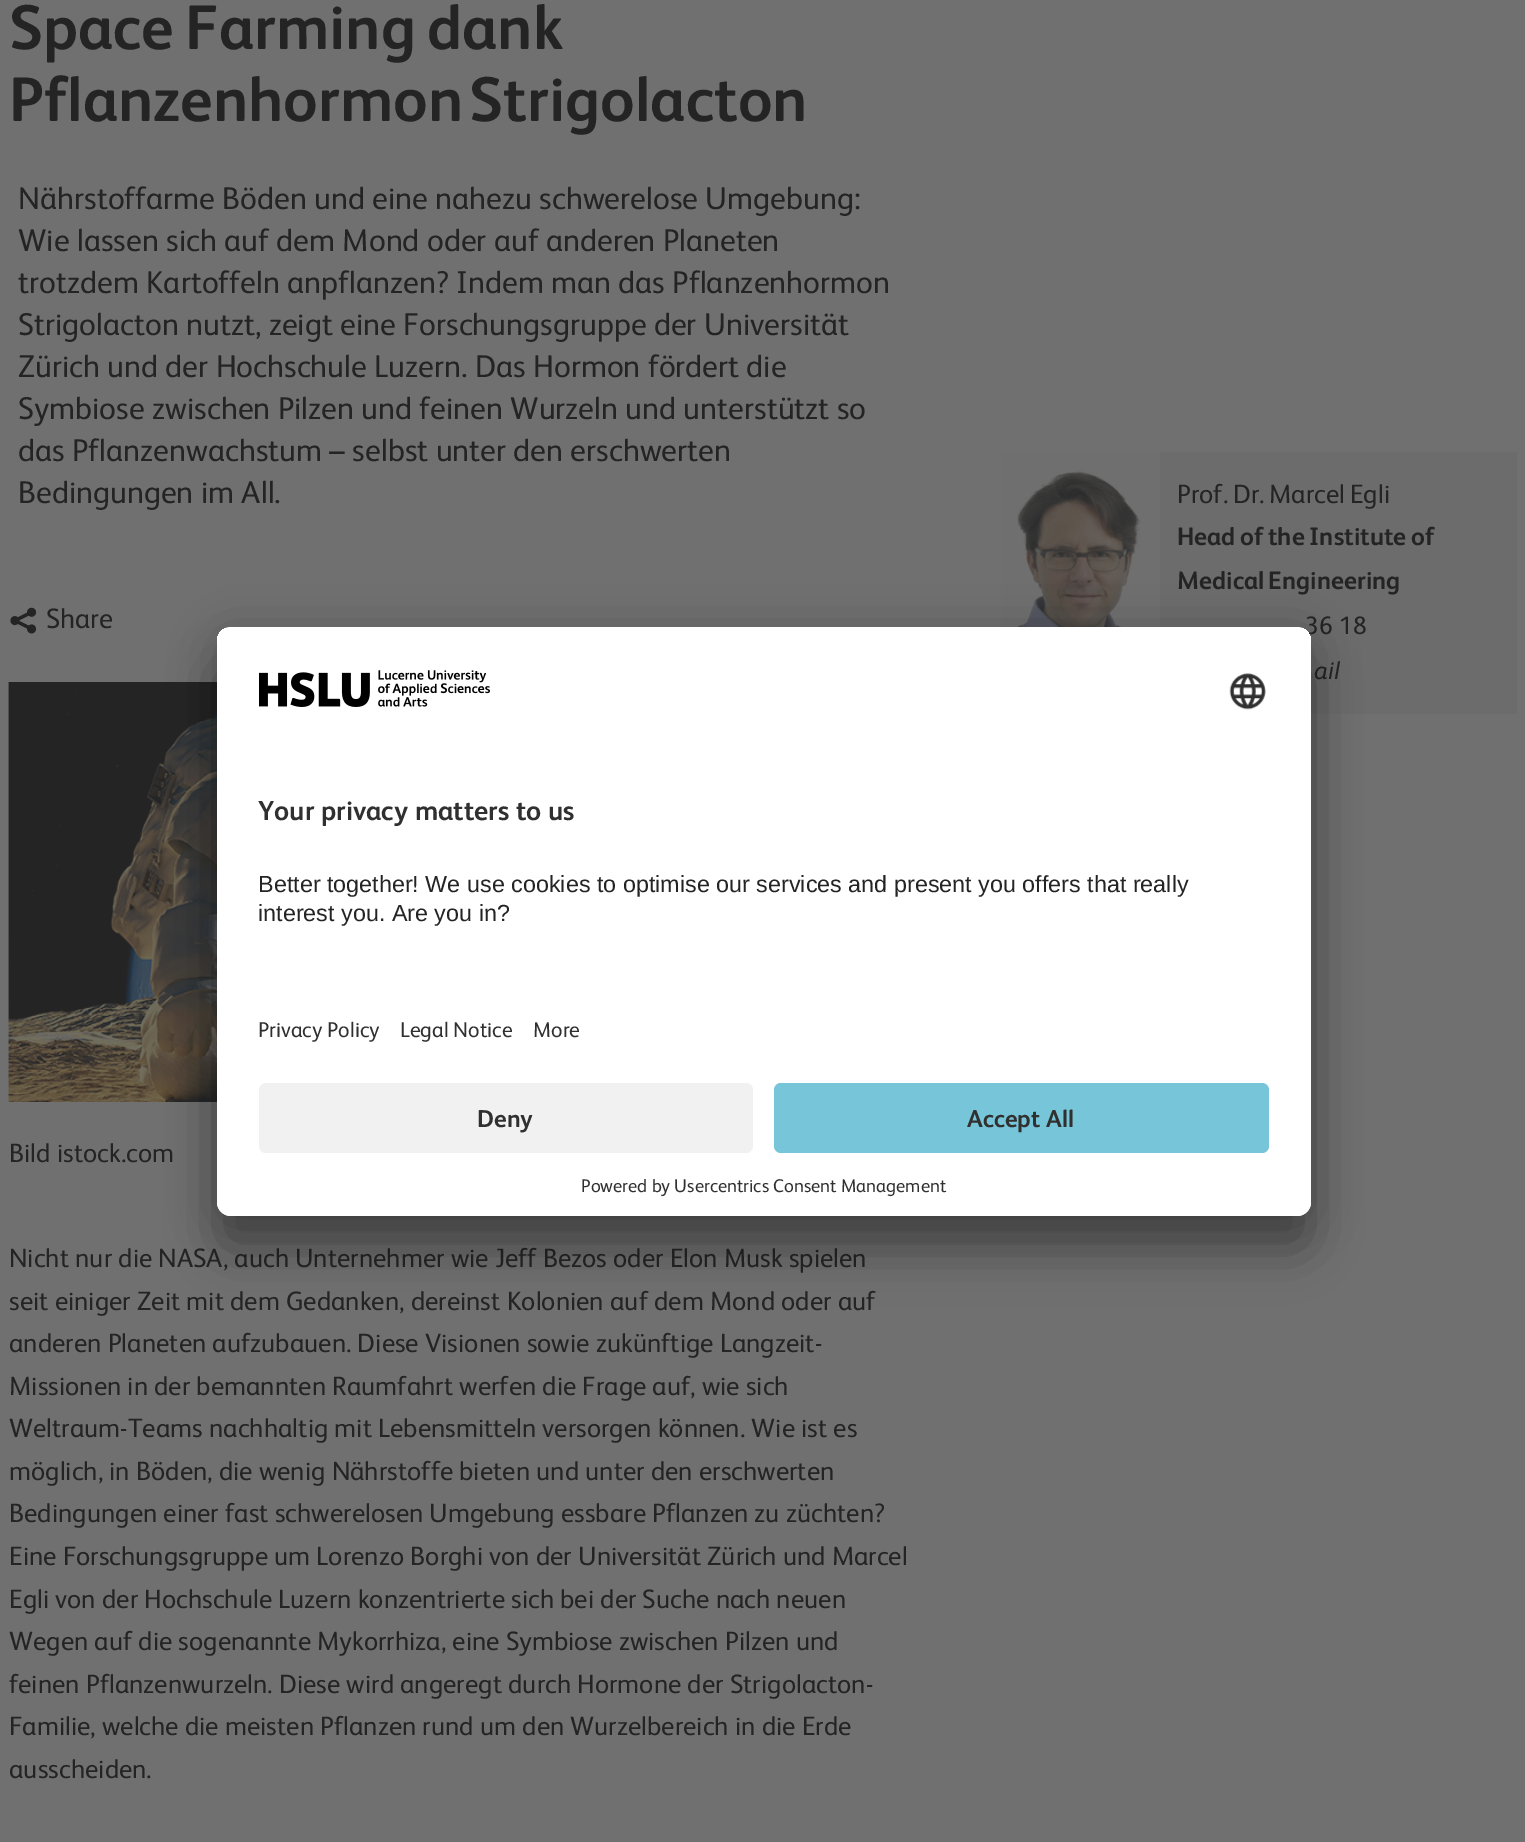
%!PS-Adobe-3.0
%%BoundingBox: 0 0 1525 1842
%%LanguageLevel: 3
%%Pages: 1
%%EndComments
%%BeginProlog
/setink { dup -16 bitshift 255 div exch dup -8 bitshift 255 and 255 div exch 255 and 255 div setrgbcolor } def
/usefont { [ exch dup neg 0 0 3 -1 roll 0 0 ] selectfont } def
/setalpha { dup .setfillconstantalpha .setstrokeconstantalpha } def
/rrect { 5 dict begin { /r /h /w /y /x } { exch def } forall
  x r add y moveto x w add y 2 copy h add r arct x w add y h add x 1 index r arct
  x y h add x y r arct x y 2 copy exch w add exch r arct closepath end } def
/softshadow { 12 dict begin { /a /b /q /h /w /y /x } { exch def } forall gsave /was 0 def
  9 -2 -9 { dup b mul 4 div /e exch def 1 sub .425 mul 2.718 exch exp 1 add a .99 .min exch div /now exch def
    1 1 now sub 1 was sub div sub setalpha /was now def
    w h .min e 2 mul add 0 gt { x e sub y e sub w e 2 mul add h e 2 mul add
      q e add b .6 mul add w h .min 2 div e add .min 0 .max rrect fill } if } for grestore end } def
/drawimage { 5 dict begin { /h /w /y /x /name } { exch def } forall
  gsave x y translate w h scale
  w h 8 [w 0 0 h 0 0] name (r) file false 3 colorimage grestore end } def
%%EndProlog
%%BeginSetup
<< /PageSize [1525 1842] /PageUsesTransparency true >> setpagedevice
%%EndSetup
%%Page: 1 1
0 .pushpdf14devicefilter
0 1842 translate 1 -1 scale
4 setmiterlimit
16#707070 setink
0 0 1525 1842 rectfill
/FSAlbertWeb-Bold 63 usefont
16#242424 setink
9 49 moveto -4 0 32 (Space Farming dank) widthshow
9 121 moveto (Pflanzenhormon) show
469 121 moveto (Strigolacton) show
/FSAlbertWeb-Regular 31.5 usefont
[
    [(Nährstoffarme Böden und eine nahezu schwerelose Umgebung:) 18 209]
    [(Wie lassen sich auf dem Mond oder auf anderen Planeten) 18 251]
    [(trotzdem Kartoffeln anpflanzen? Indem man das Pflanzenhormon) 18 293]
    [(Strigolacton nutzt, zeigt eine Forschungsgruppe der Universität) 18 335]
    [(Zürich und der Hochschule Luzern. Das Hormon fördert die) 18 377]
    [(Symbiose zwischen Pilzen und feinen Wurzeln und unterstützt so) 18 419]
    [(das Pflanzenwachstum – selbst unter den erschwerten) 18 461]
    [(Bedingungen im All.) 18 503]
] { aload pop moveto show } forall
(img1.raw) 10 607 27 27 drawimage
/FSAlbertWeb-Regular 28 usefont
46 628 moveto (Share) show
(img2.raw) 8 682 1 420 drawimage
(img3.raw) 8 682 209 420 drawimage
/FSAlbertWeb-Regular 26.6 usefont
[
    [(Bild istock.com) 9 1162]
    [(Nicht nur die NASA, auch Unternehmer wie Jeff Bezos oder Elon Musk spielen) 9 1267]
    [(seit einiger Zeit mit dem Gedanken, dereinst Kolonien auf dem Mond oder auf) 9 1310]
    [(anderen Planeten aufzubauen. Diese Visionen sowie zukünftige Langzeit-) 9 1352]
    [(Missionen in der bemannten Raumfahrt werfen die Frage auf, wie sich) 9 1395]
    [(Weltraum-Teams nachhaltig mit Lebensmitteln versorgen können. Wie ist es) 9 1437]
    [(möglich, in Böden, die wenig Nährstoffe bieten und unter den erschwerten) 9 1480]
    [(Bedingungen einer fast schwerelosen Umgebung essbare Pflanzen zu züchten?) 9 1522]
    [(Eine Forschungsgruppe um Lorenzo Borghi von der Universität Zürich und Marcel) 9 1565]
    [(Egli von der Hochschule Luzern konzentrierte sich bei der Suche nach neuen) 9 1608]
    [(Wegen auf die sogenannte Mykorrhiza, eine Symbiose zwischen Pilzen und) 9 1650]
    [(feinen Pflanzenwurzeln. Diese wird angeregt durch Hormone der Strigolacton-) 9 1693]
    [(Familie, welche die meisten Pflanzen rund um den Wurzelbereich in die Erde) 9 1735]
    [(ausscheiden.) 9 1778]
] { aload pop moveto show } forall
16#6C6C6C setink
1160 452 357 262 rectfill
(img4.raw) 1001 452 160 175 drawimage
16#242424 setink
1177 503 moveto -1.5 0 32 (Prof. Dr. Marcel Egli) widthshow
/FSAlbertWeb-Bold 25.25 usefont
1177 545 moveto -1.5 0 32 (Head of the Institute of) widthshow
1177 589 moveto -2 0 32 (Medical Engineering) widthshow
/FSAlbertWeb-Regular 25.25 usefont
1305 634 moveto (36 18) show
/FSAlbertWeb-Italic 25.25 usefont
1314 679 moveto -2 0 32 (ail) widthshow
16#000000 setink
217 662 1094 589 14 24.5 0.3 softshadow
217 635 1094 590 14 23 0.22 softshadow
16#FFFFFF setink
217 627 1094 589 14 rrect fill
gsave
217 627 1094 589 14 rrect clip newpath
231 627 moveto 1297 627 lineto 1304.5 627 1311 633.5 1311 641 curveto 1311 1069 lineto 217 1069 lineto 217 641 lineto 217 633.5 223.5 627 231 627 curveto closepath clip newpath
217 628 1094 441 rectfill
grestore
(img5.raw) 259 670 231 37 drawimage
(img6.raw) 1229 673 37 37 drawimage
/FSAlbertWeb-Bold 27.5 usefont
16#303030 setink
258 820 moveto (Your privacy matters to us) show
/LiberationSans-Regular 23.35 usefont
16#242424 setink
258 892 moveto (Better together! We use cookies to optimise our services and present you offers that really) show
258 921 moveto (interest you. Are you in?) show
/FSAlbertWeb-Regular 21.5 usefont
16#303030 setink
[
    [(Privacy Policy) 258 1037]
    [(Legal Notice) 400 1037]
    [(More) 533 1037]
] { aload pop moveto show } forall
16#FFFFFF setink
217 1069 moveto 1311 1069 lineto 1311 1202 lineto 1311 1209.5 1304.5 1216 1297 1216 curveto 231 1216 lineto 223.5 1216 217 1209.5 217 1202 curveto closepath fill
16#F1F1F1 setink
259 1083 494 70 7 rrect fill
/FSAlbertWeb-Bold 24.5 usefont
16#303030 setink
477 1127 moveto (Deny) show
16#77C5D8 setink
774 1083 495 70 7 rrect fill
16#303030 setink
967 1127 moveto (Accept All) show
/FSAlbertWeb-Regular 18.4 usefont
581 1192 moveto (Powered by Usercentrics Consent Management) show
.poppdf14devicefilter showpage
%%EOF
